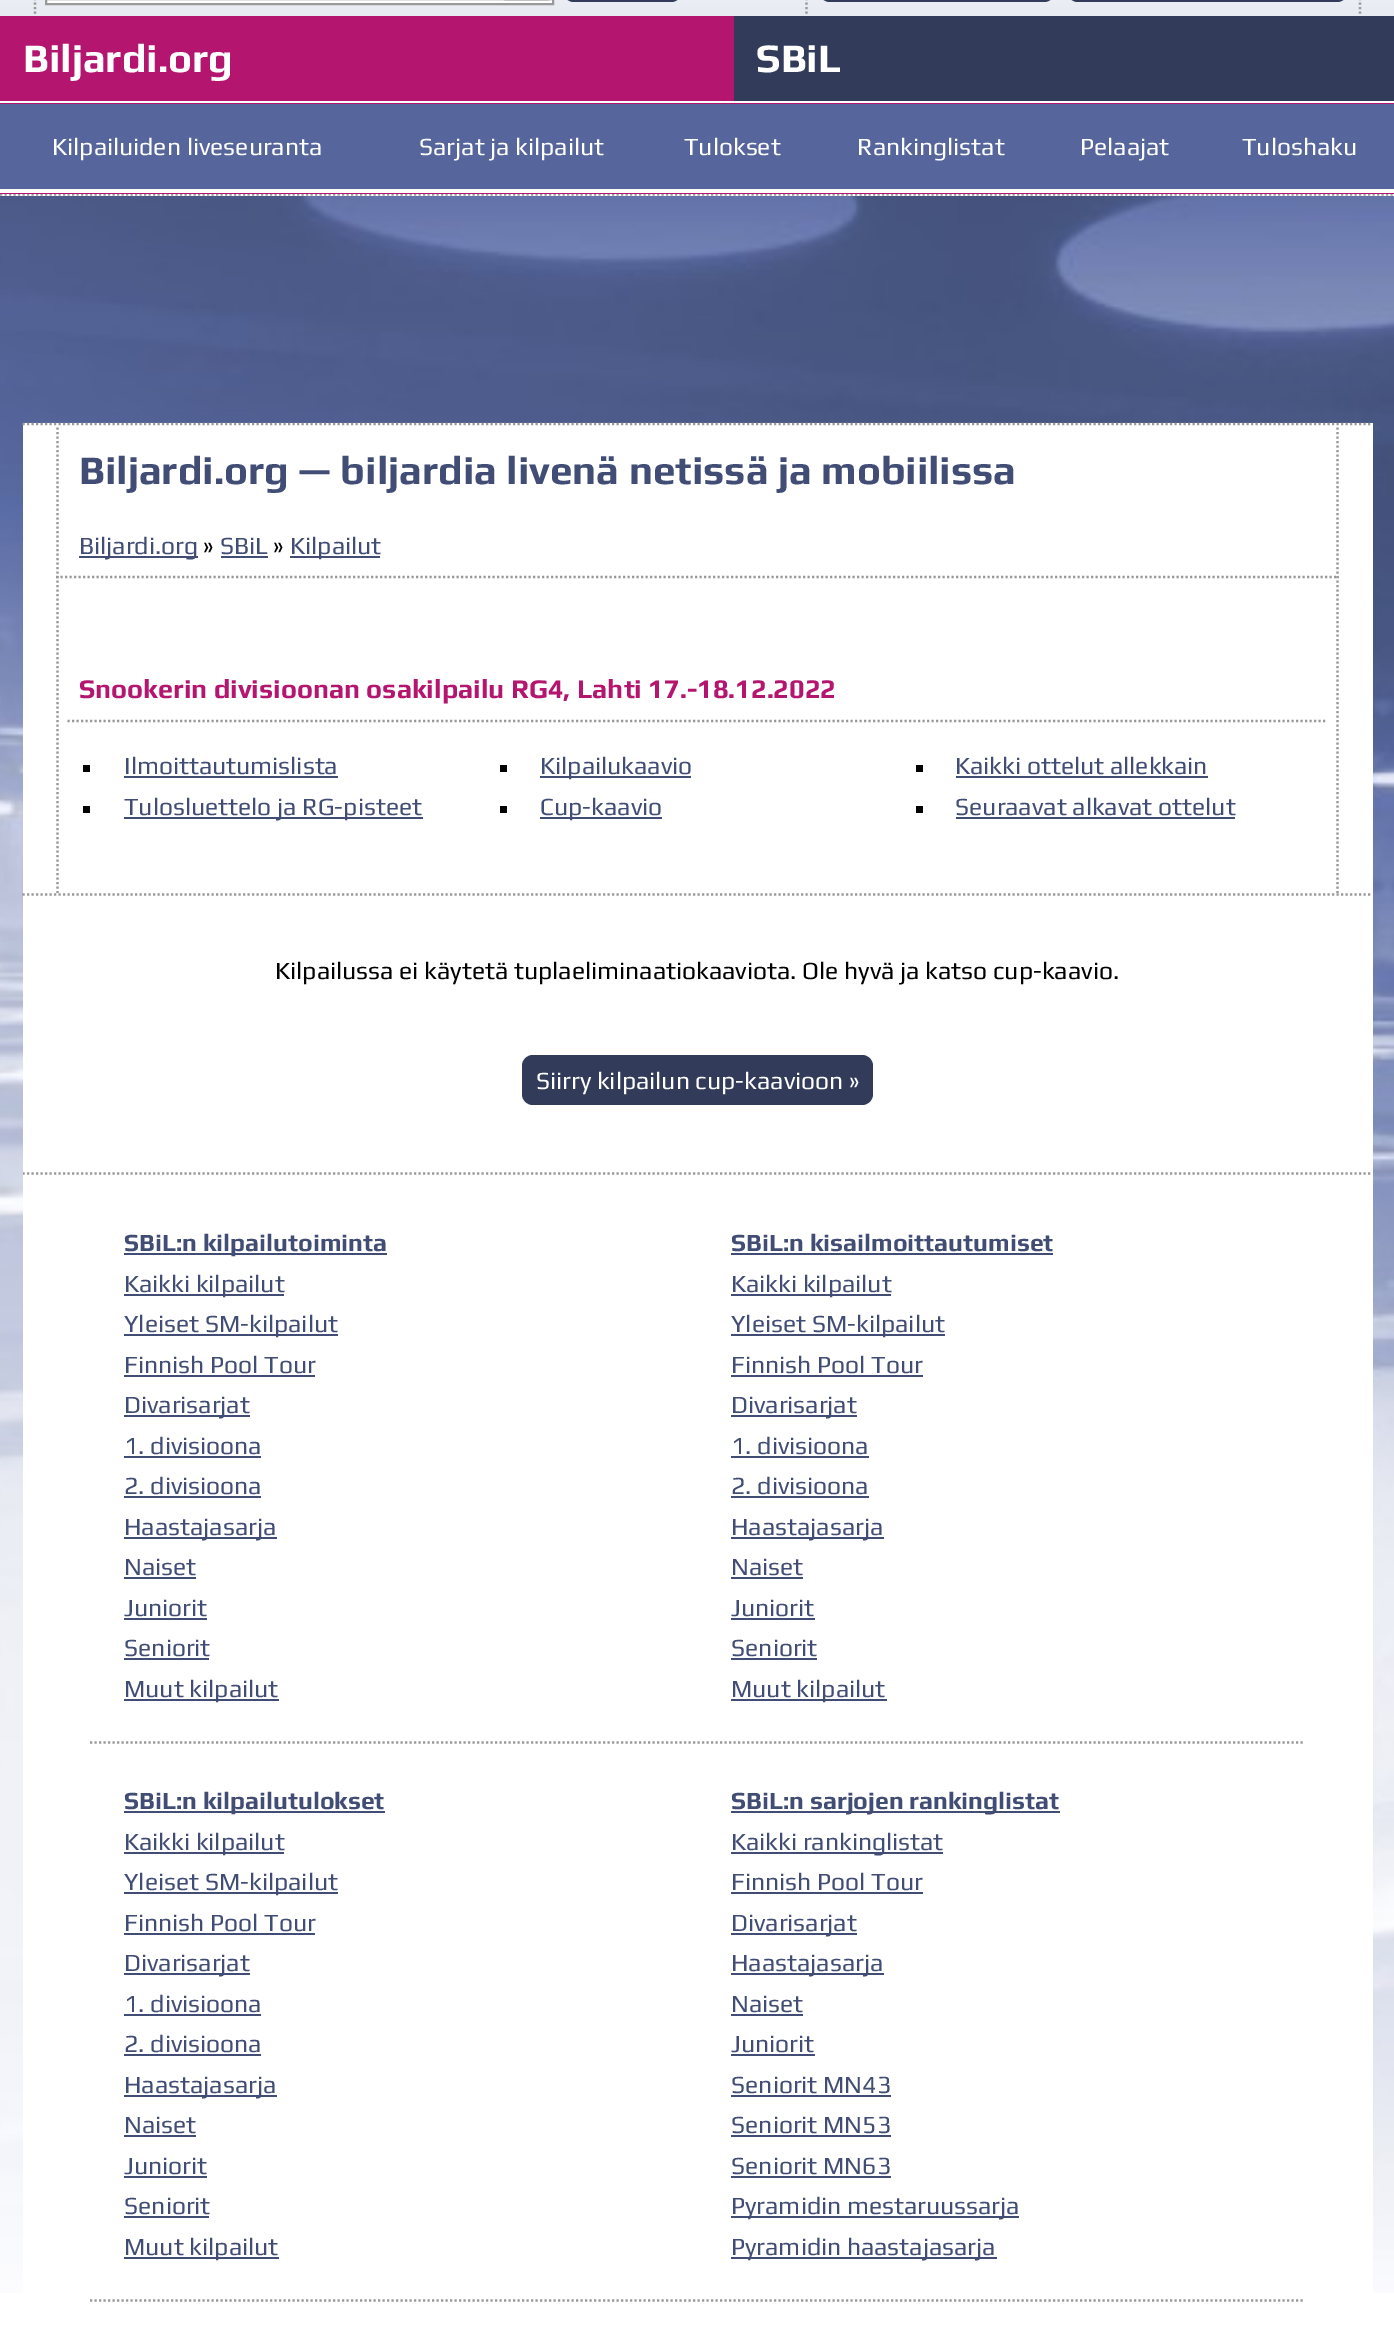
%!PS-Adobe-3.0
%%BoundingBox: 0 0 1394 2328
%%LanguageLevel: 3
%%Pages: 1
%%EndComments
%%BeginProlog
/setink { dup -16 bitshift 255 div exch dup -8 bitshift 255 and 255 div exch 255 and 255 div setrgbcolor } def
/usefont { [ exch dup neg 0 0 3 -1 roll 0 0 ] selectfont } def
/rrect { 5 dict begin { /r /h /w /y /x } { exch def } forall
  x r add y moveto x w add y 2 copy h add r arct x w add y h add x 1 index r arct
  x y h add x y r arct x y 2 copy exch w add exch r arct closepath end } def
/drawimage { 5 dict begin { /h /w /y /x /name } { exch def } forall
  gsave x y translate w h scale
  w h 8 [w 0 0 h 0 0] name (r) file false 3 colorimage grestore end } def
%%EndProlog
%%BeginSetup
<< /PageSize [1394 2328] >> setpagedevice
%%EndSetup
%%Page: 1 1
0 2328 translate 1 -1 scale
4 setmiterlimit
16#FFFFFF setink
0 0 1394 2328 rectfill
(img1.raw) 0 196 1394 2097 drawimage
(img2.raw) 0 0 1394 16 drawimage
16#999999 setink
2.2 setlinewidth
[2.25 2.25] 0 setdash
0 194.5 moveto 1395 194.5 lineto stroke
35 -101 moveto 35 16 lineto stroke
16#FFFFFF setink
45 0 509 3 rectfill
(img3.raw) 503 0 47 1 drawimage
16#999999 setink
2 setlinewidth
[] 0 setdash
46 -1 507 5 rectstroke
16#323B5A setink
563 -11 119 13 11 rrect fill
16#999999 setink
2.2 setlinewidth
[2.25 2.25] 0 setdash
1360 -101 moveto 1360 16 lineto stroke
806.5 -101 moveto 806.5 16 lineto stroke
16#323B5A setink
819 -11 236 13 11 rrect fill
1067 -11 281 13 11 rrect fill
16#B4166F setink
0 16 1394 178 rectfill
16#FFFFFF setink
0 191 1394 2 rectfill
/Play-Bold 40.5 usefont
23 72 moveto (Biljardi.org) show
16#323B5A setink
734 16 660 85 rectfill
16#FFFFFF setink
756 72 moveto (SBiL) show
16#56669C setink
0 104 1394 85 rectfill
/Play-Regular 24.75 usefont
16#FFFFFF setink
[
    [(Kilpailuiden liveseuranta) 52 155]
    [(Sarjat ja kilpailut) 419 155]
    [(Tulokset) 684 155]
    [(Rankinglistat) 857 155]
    [(Pelaajat) 1080 155]
] { aload pop moveto show } forall
0 101 1394 2 rectfill
0 189 1394 2 rectfill
1242 155 moveto (Tuloshaku) show
23 423 1350 1870 rectfill
16#999999 setink
22.5 424 moveto 1372.5 424 lineto stroke
1337.5 427.5 moveto 1337.5 576 lineto stroke
57.5 427.5 moveto 57.5 576 lineto stroke
/Play-Bold 40.5 usefont
16#414D75 setink
79 484 moveto (Biljardi.org — biljardia livenä netissä ja mobiilissa) show
79 556 119 2 rectfill
/Play-Regular 24.75 usefont
79 554 moveto (Biljardi.org) show
16#000000 setink
203 554 moveto (») show
16#414D75 setink
220 554 moveto (SBiL) show
221 556 47 2 rectfill
16#000000 setink
273 554 moveto (») show
16#414D75 setink
290 556 90 2 rectfill
290 554 moveto (Kilpailut) show
16#999999 setink
56 577 moveto 1339 577 lineto stroke
1337.5 576 moveto 1337.5 893 lineto stroke
57.5 576 moveto 57.5 893 lineto stroke
67.5 721 moveto 1327.5 721 lineto stroke
/Play-Bold 27 usefont
16#B4166F setink
79 698 moveto (Snookerin divisioonan osakilpailu RG4, Lahti 17.-18.12.2022) show
16#000000 setink
83 765 7 7 rectfill
/Play-Regular 24.75 usefont
16#414D75 setink
124 774 moveto (Ilmoittautumislista) show
[
    [124 776 214 2 16#414D75]
    [83 806 7 7 16#000000]
    [124 817 299 2 16#414D75]
] { aload pop setink rectfill } forall
124 815 moveto (Tulosluettelo ja RG-pisteet) show
16#000000 setink
500 765 7 7 rectfill
16#414D75 setink
540 776 151 2 rectfill
540 774 moveto (Kilpailukaavio) show
16#000000 setink
500 806 7 7 rectfill
16#414D75 setink
540 817 122 2 rectfill
540 815 moveto (Cup-kaavio) show
16#000000 setink
916 765 7 7 rectfill
16#414D75 setink
955 774 moveto (Kaikki ottelut allekkain) show
956 776 252 2 rectfill
16#000000 setink
916 806 7 7 rectfill
16#414D75 setink
955 815 moveto (Seuraavat alkavat ottelut) show
956 817 279 2 rectfill
16#999999 setink
22.5 894.5 moveto 1372.5 894.5 lineto stroke
16#000000 setink
275 979 moveto (Kilpailussa ei käytetä tuplaeliminaatiokaaviota. Ole hyvä ja katso cup-kaavio.) show
16#323B5A setink
522 1055 351 50 11 rrect fill
16#FFFFFF setink
536 1089 moveto (Siirry kilpailun cup-kaavioon ») show
gsave
23 896 1350 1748 rectclip
16#999999 setink
22.5 1173.5 moveto 1372.5 1173.5 lineto stroke
grestore
16#414D75 setink
124 1253 263 2 rectfill
/Play-Bold 24.75 usefont
124 1251 moveto (SBiL:n kilpailutoiminta) show
124 1294 160 2 rectfill
/Play-Regular 24.75 usefont
124 1292 moveto (Kaikki kilpailut) show
124 1334 214 2 rectfill
124 1332 moveto (Yleiset SM-kilpailut) show
124 1373 moveto (Finnish Pool Tour) show
124 1375 191 2 rectfill
124 1415 126 2 rectfill
124 1413 moveto (Divarisarjat) show
124 1454 moveto (1. divisioona) show
124 1456 137 2 rectfill
124 1494 moveto (2. divisioona) show
124 1496 137 2 rectfill
124 1537 153 2 rectfill
124 1535 moveto (Haastajasarja) show
124 1575 moveto (Naiset) show
124 1577 72 2 rectfill
124 1616 moveto (Juniorit) show
124 1618 83 2 rectfill
124 1656 moveto (Seniorit) show
124 1658 85 2 rectfill
124 1699 155 2 rectfill
124 1697 moveto (Muut kilpailut) show
/Play-Bold 24.75 usefont
731 1251 moveto (SBiL:n kisailmoittautumiset) show
731 1253 322 2 rectfill
731 1294 160 2 rectfill
/Play-Regular 24.75 usefont
731 1292 moveto (Kaikki kilpailut) show
731 1334 214 2 rectfill
731 1332 moveto (Yleiset SM-kilpailut) show
731 1373 moveto (Finnish Pool Tour) show
731 1375 192 2 rectfill
731 1415 126 2 rectfill
731 1413 moveto (Divarisarjat) show
731 1454 moveto (1. divisioona) show
731 1456 138 2 rectfill
731 1494 moveto (2. divisioona) show
731 1496 138 2 rectfill
731 1537 153 2 rectfill
731 1535 moveto (Haastajasarja) show
731 1575 moveto (Naiset) show
731 1577 72 2 rectfill
731 1616 moveto (Juniorit) show
731 1618 84 2 rectfill
731 1656 moveto (Seniorit) show
731 1658 86 2 rectfill
731 1699 156 2 rectfill
731 1697 moveto (Muut kilpailut) show
16#999999 setink
90 1742.5 moveto 1305 1742.5 lineto stroke
16#414D75 setink
124 1811 261 2 rectfill
/Play-Bold 24.75 usefont
124 1809 moveto (SBiL:n kilpailutulokset) show
124 1852 160 2 rectfill
/Play-Regular 24.75 usefont
124 1850 moveto (Kaikki kilpailut) show
124 1892 214 2 rectfill
124 1890 moveto (Yleiset SM-kilpailut) show
124 1931 moveto (Finnish Pool Tour) show
124 1933 191 2 rectfill
124 1973 126 2 rectfill
124 1971 moveto (Divarisarjat) show
124 2012 moveto (1. divisioona) show
124 2014 137 2 rectfill
124 2052 moveto (2. divisioona) show
124 2054 137 2 rectfill
124 2095 153 2 rectfill
124 2093 moveto (Haastajasarja) show
124 2133 moveto (Naiset) show
124 2135 72 2 rectfill
124 2174 moveto (Juniorit) show
124 2176 83 2 rectfill
124 2214 moveto (Seniorit) show
124 2216 85 2 rectfill
124 2257 155 2 rectfill
124 2255 moveto (Muut kilpailut) show
731 1811 329 2 rectfill
/Play-Bold 24.75 usefont
731 1809 moveto (SBiL:n sarjojen rankinglistat) show
731 1852 212 2 rectfill
/Play-Regular 24.75 usefont
731 1850 moveto (Kaikki rankinglistat) show
731 1890 moveto (Finnish Pool Tour) show
731 1892 192 2 rectfill
731 1933 126 2 rectfill
731 1931 moveto (Divarisarjat) show
731 1973 153 2 rectfill
731 1971 moveto (Haastajasarja) show
731 2012 moveto (Naiset) show
731 2014 72 2 rectfill
731 2052 moveto (Juniorit) show
731 2054 84 2 rectfill
731 2093 moveto (Seniorit MN43) show
731 2095 160 2 rectfill
731 2133 moveto (Seniorit MN53) show
731 2135 160 2 rectfill
731 2174 moveto (Seniorit MN63) show
731 2176 160 2 rectfill
731 2216 288 2 rectfill
731 2214 moveto (Pyramidin mestaruussarja) show
731 2257 266 2 rectfill
731 2255 moveto (Pyramidin haastajasarja) show
16#999999 setink
90 2300.5 moveto 1305 2300.5 lineto stroke
showpage
%%EOF
